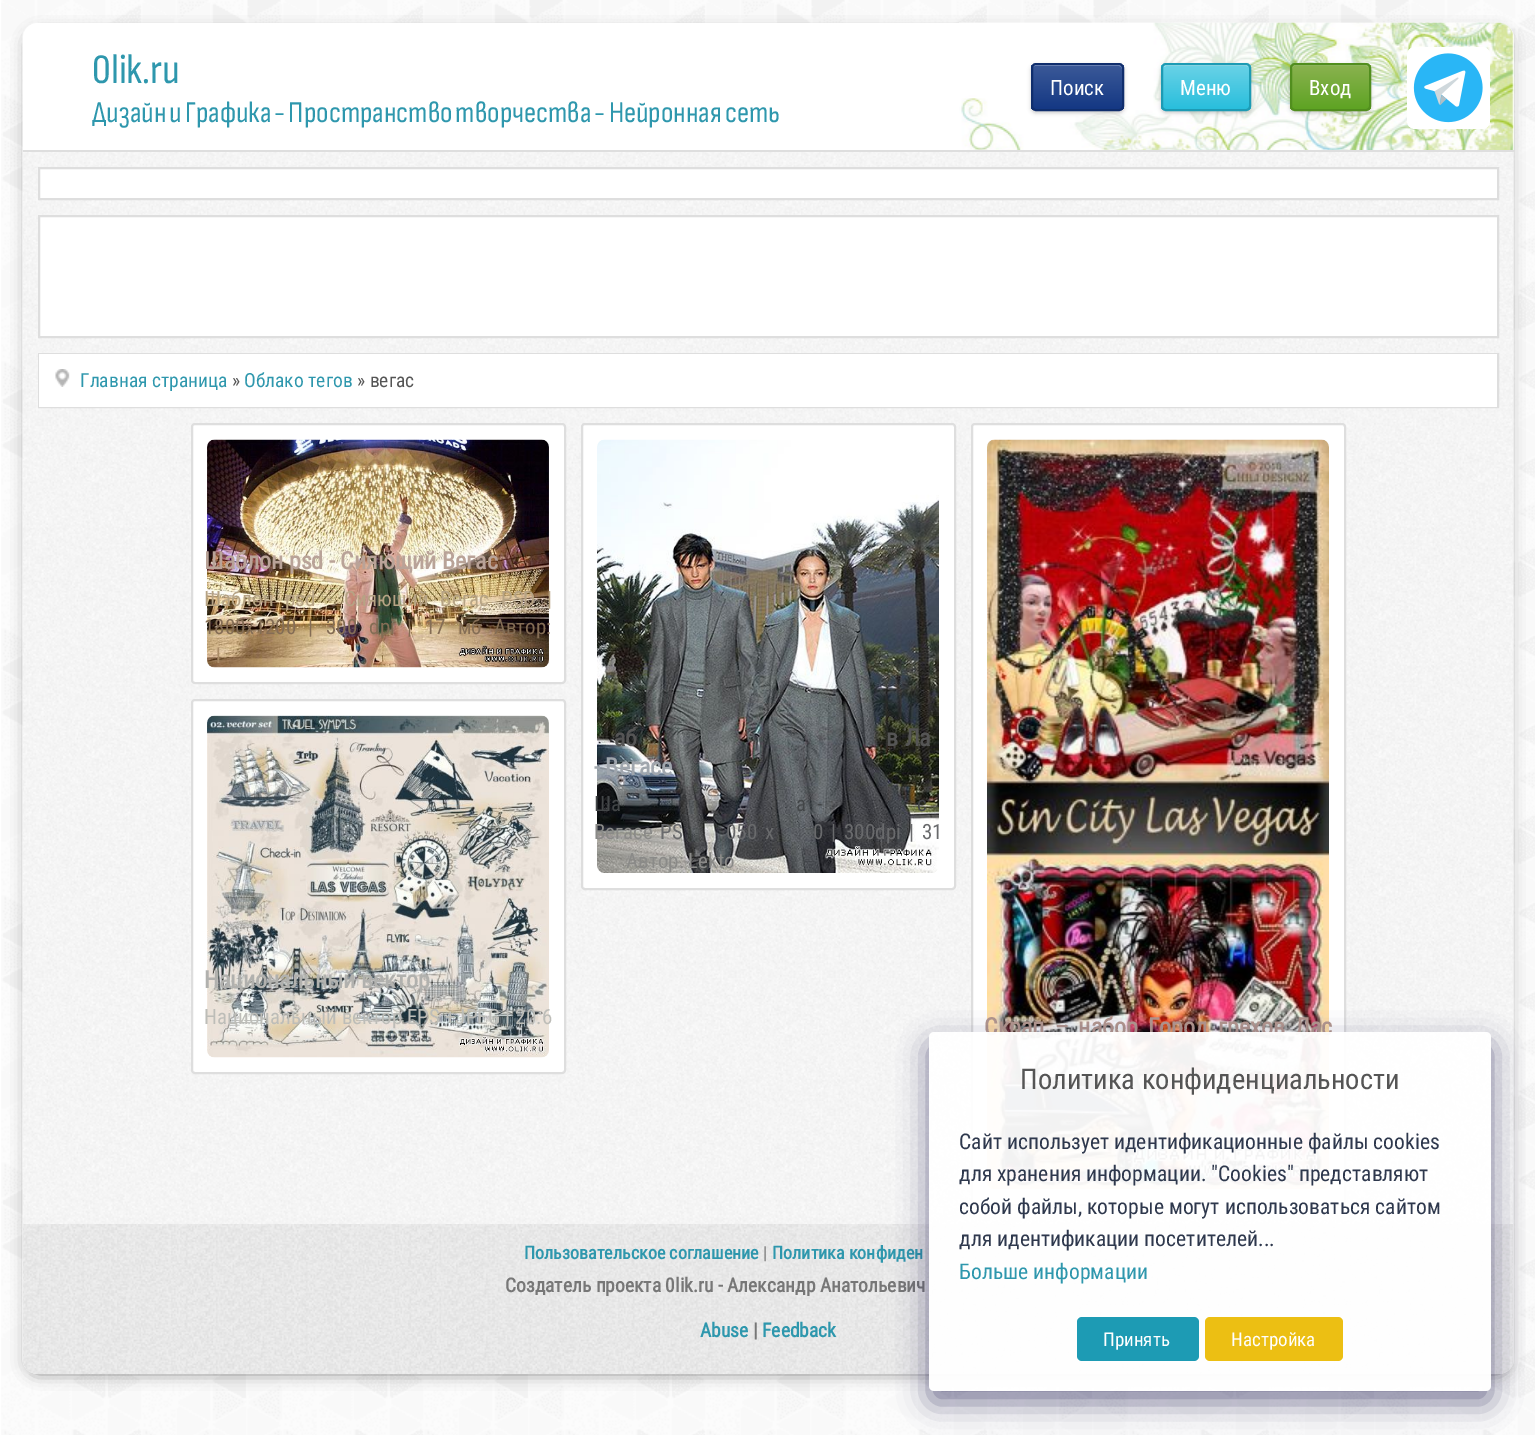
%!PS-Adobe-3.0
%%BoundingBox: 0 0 1535 1435
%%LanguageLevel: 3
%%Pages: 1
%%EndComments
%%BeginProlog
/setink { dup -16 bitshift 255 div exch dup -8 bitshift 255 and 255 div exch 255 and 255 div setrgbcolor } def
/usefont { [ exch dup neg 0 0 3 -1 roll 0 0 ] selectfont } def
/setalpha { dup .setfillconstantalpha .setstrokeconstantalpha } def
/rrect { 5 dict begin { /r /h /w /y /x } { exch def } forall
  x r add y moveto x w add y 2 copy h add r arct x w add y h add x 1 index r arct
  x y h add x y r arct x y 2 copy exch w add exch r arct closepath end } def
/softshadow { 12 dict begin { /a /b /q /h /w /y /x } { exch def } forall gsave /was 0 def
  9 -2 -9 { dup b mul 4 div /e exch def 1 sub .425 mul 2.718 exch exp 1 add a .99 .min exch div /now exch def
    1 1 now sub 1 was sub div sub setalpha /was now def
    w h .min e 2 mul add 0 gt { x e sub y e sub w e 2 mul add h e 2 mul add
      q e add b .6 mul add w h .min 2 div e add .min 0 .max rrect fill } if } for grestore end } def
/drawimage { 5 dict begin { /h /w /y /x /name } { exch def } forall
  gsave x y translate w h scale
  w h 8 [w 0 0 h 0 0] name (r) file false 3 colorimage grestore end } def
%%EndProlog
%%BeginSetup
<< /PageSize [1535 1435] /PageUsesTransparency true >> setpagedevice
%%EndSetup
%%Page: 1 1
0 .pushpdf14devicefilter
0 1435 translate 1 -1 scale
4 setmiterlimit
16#FFFFFF setink
0 0 1535 1435 rectfill
(img1.raw) 1 0 1534 1435 drawimage
16#000000 setink
27 32 1482 1342 11 7.5 0.43 softshadow
(img2.raw) 22 23 1492 1351 drawimage
16#FFFFFF setink
38 23 moveto 1499 23 lineto 1507.5 23 1514 29.5 1514 38 curveto 1514 152 lineto 23 152 lineto 23 38 lineto 23 29.5 29.5 23 38 23 curveto closepath fill
(img3.raw) 959 22 555 128 drawimage
16#DEDEDE setink
23 150 1491 2 rectfill
/SofiaSansCondensed-Regular 42 usefont
16#2E97AD setink
92 83 moveto (0lik.ru) show
/SofiaSansCondensed-Regular 30 usefont
92 122 moveto -1.75 0 32 (Дизайн и Графика - Пространство творчества - Нейронная сеть) widthshow
16#000000 setink
1031 65 93 48 5 2 0.2 softshadow
gsave
1031 63 93 48 5 rrect clip newpath
gsave 1031 65 moveto 1124 65 lineto 1124 110 lineto 1031 110 lineto closepath clip newpath
<< /ShadingType 2 /ColorSpace /DeviceRGB /Coords [1032 110 1032 65] /Extend [true true] /Function << /FunctionType 2 /Domain [0 1] /C0 [0.075 0.216 0.514] /C1 [0.231 0.349 0.596] /N 1 >> >> shfill grestore
grestore
16#869CCA setink
1035 66 moveto 1119 66 lineto 1121 66 1122 67 1122 69 curveto 1122 61 1109 65 1105 65 curveto 1049 65 lineto 1045 65 1032 61 1032 69 curveto 1032 67 1033 66 1035 66 curveto closepath fill
16#102E6D setink
2 setlinewidth
1032 64 91 46 4 rrect stroke
/RobotoCondensed-Regular 21 usefont
16#FFFFFF setink
1050 95 moveto (Поиск) show
16#000000 setink
1161 65 90 48 5 2 0.2 softshadow
gsave
1161 63 90 48 5 rrect clip newpath
gsave 1161 65 moveto 1251 65 lineto 1251 110 lineto 1161 110 lineto closepath clip newpath
<< /ShadingType 2 /ColorSpace /DeviceRGB /Coords [1163 110 1163 65] /Extend [true true] /Function << /FunctionType 2 /Domain [0 1] /C0 [0.153 0.745 0.863] /C1 [0.412 0.824 0.906] /N 1 >> >> shfill grestore
grestore
16#ABE6F2 setink
1166 66 moveto 1246 66 lineto 1248 66 1250 67 1250 69 curveto 1250 61 1237 65 1234 65 curveto 1165 65 lineto 1163 67 lineto closepath fill
16#1D9BB4 setink
1162 64 88 46 4 rrect stroke
16#FFFFFF setink
1180 95 moveto (Меню) show
16#000000 setink
1290 65 81 48 5 2 0.2 softshadow
gsave
1290 63 81 48 5 rrect clip newpath
gsave 1290 65 moveto 1371 65 lineto 1371 110 lineto 1290 110 lineto closepath clip newpath
<< /ShadingType 2 /ColorSpace /DeviceRGB /Coords [1292 110 1292 65] /Extend [true true] /Function << /FunctionType 2 /Domain [0 1] /C0 [0.365 0.639 0.133] /C1 [0.541 0.698 0.31] /N 1 >> >> shfill grestore
grestore
16#A2C272 setink
1294 66 moveto 1366 66 lineto 1368 66 1370 67 1370 69 curveto 1370 62 1359 65 1355 65 curveto 1307 65 lineto 1303 65 1292 62 1292 69 curveto 1292 67 1293 66 1294 66 curveto closepath fill
16#518E1E setink
1291 64 79 46 4 rrect stroke
16#FFFFFF setink
1309 95 moveto (Вход) show
1407 47 83 82 8 rrect fill
(img4.raw) 1413 53 70 70 drawimage
39 168 moveto 1498 168 lineto 1498 199 lineto 39 199 lineto closepath gsave fill grestore
16#DEDEDE setink
stroke
16#FFFFFF setink
39 216 moveto 1498 216 lineto 1498 337 lineto 39 337 lineto closepath gsave fill grestore
16#DEDEDE setink
stroke
39 354 1459 53 rectstroke
16#FFFFFF setink
39 354 1458 53 rectfill
(img5.raw) 55 369 15 18 drawimage
/RobotoCondensed-Regular 19.5 usefont
16#2E97AD setink
80 387 moveto (Главная страница) show
16#555555 setink
232 387 moveto (») show
16#2E97AD setink
244 387 moveto (Облако тегов) show
16#555555 setink
357 387 moveto (» вегас) show
16#FFFFFF setink
192 424 373 259 3 rrect gsave fill grestore
16#DEDEDE setink
stroke
(img6.raw) 207 439 342 229 drawimage
/RobotoCondensed-Bold 24 usefont
16#B9A398 setink
204 569 moveto (Шаблон psd - Сияющий Вегас) show
/RobotoCondensed-Regular 21 usefont
16#B6A384 setink
204 606 moveto 7 0 32 (Шаблон psd - Сияющий Вегас PSD |) widthshow
16#846D55 setink
204 634 moveto 7.5 0 32 (1800x1200 | 300 dpi | 17 мб Автор:) widthshow
16#AA8B66 setink
216 663 moveto (l) show
16#FFFFFF setink
582 424 373 465 3 rrect gsave fill grestore
16#DEDEDE setink
stroke
(img7.raw) 597 439 342 434 drawimage
/RobotoCondensed-Bold 24 usefont
16#555555 setink
614 746 moveto 1 0 32 (аб) widthshow
886 746 moveto 1 0 32 (в Ла) widthshow
16#A0A6AD setink
594 775 moveto (- Вегасе) show
/RobotoCondensed-Regular 21 usefont
16#434648 setink
594 811 moveto 6 0 32 (Ша) widthshow
796 811 moveto 6 0 32 (а -) widthshow
917 811 moveto 6 0 32 (с) widthshow
16#8A8A88 setink
594 839 moveto (Вегасе) show
16#696A6C setink
660 839 moveto 3 0 32 (PS) widthshow
726 839 moveto 3 0 32 (050 x) widthshow
813 839 moveto 3 0 32 (0 | 300dpi | 31) widthshow
16#8A8A88 setink
626 868 moveto (Автор: Lekto) show
16#FFFFFF setink
192 700 373 373 3 rrect gsave fill grestore
16#DEDEDE setink
stroke
(img8.raw) 207 715 342 343 drawimage
/RobotoCondensed-Bold 24 usefont
16#B1B1AE setink
204 988 moveto (Национальный вектор) show
/RobotoCondensed-Regular 21 usefont
16#BDBDB8 setink
204 1024 moveto 0.25 0 32 (Национальный вектор EPS +JPEG | 20.6) widthshow
16#FFFFFF setink
972 424 373 781 3 rrect gsave fill grestore
16#DEDEDE setink
stroke
(img9.raw) 987 439 342 751 drawimage
/RobotoCondensed-Bold 24 usefont
16#B3978E setink
984 1035 moveto 4.5 0 32 (Скрап – набор Город грехов Лас) widthshow
16#EBEBEB setink
23 1224 moveto 1514 1224 lineto 1514 1359 lineto 1514 1367.5 1507.5 1374 1499 1374 curveto 38 1374 lineto 29.5 1374 23 1367.5 23 1359 curveto closepath fill
(img10.raw) 23 1224 1490 150 drawimage
/RobotoCondensed-Bold 18 usefont
16#2E97AD setink
524 1259 moveto (Пользовательское соглашение) show
/RobotoCondensed-Regular 18 usefont
16#777777 setink
763 1259 moveto (|) show
/RobotoCondensed-Bold 18 usefont
16#2E97AD setink
772 1259 moveto (Политика конфиден) show
/RobotoCondensed-Bold 19.5 usefont
16#777777 setink
505 1292 moveto (Создатель проекта 0lik.ru - Александр Анатольевич) show
16#2E97AD setink
700 1337 moveto (Abuse) show
16#777777 setink
753 1337 moveto (|) show
16#2E97AD setink
762 1337 moveto (Feedback) show
gsave
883 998 moveto 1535 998 lineto 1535 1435 lineto 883 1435 lineto closepath 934 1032 moveto 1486 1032 lineto 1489 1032 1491 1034 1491 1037 curveto 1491 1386 lineto 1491 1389 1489 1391 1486 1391 curveto 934 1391 lineto 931 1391 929 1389 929 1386 curveto 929 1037 lineto 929 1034 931 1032 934 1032 curveto closepath eoclip newpath
16#282559 setink
929 1044 562 359 5 15 0.6 softshadow
grestore
0.95 setalpha
16#FFFFFF setink
929 1032 562 359 5 rrect fill
/RobotoCondensed-Regular 28.5 usefont
1 setalpha
16#555555 setink
1020 1089 moveto (Политика конфиденциальности) show
/RobotoCondensed-Regular 21.6 usefont
16#2E384D setink
[
    [(Сайт использует идентификационные файлы cookies) 959 1149]
    [(для хранения информации. "Cookies" представляют) 959 1181]
    [(собой файлы, которые могут использоваться сайтом) 959 1214]
    [(для идентификации посетителей...) 959 1246]
] { aload pop moveto show } forall
16#2E97AD setink
959 1279 moveto (Больше информации) show
16#1D9BB4 setink
1077 1317 122 44 5 rrect fill
/RobotoCondensed-Regular 19 usefont
16#FFFFFF setink
1103 1346 moveto (Принять) show
16#ECBF13 setink
1205 1317 138 44 5 rrect fill
16#FFFFFF setink
1231 1346 moveto (Настройка) show
.poppdf14devicefilter showpage
%%EOF
